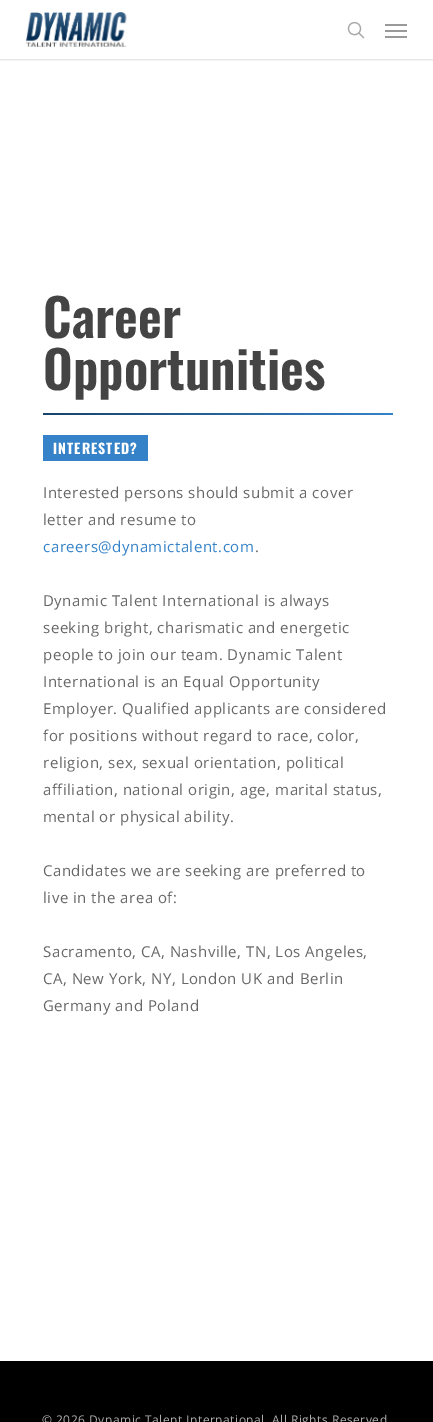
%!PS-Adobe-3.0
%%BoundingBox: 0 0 433 1422
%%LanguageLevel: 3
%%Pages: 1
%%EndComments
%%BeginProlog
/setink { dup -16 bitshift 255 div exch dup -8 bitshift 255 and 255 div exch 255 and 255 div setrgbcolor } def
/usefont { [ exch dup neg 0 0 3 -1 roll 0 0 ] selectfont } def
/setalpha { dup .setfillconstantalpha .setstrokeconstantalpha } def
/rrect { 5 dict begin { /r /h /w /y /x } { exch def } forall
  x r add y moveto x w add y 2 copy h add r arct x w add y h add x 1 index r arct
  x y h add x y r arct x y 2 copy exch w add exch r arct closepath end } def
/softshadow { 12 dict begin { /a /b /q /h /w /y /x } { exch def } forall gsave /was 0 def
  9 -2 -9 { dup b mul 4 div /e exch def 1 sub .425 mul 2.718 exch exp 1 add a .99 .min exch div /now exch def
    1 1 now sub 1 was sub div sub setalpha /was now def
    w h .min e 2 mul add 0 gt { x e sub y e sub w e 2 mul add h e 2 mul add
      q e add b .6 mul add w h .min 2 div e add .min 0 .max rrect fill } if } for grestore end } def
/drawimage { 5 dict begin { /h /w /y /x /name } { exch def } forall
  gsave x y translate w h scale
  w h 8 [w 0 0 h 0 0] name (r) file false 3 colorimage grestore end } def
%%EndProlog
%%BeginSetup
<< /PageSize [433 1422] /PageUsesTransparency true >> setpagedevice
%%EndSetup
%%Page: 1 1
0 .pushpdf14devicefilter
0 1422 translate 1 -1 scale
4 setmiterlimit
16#000000 setink
0 0 433 1422 rectfill
16#FFFFFF setink
0 0 433 1361 rectfill
gsave
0 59 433 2 rectclip
16#000000 setink
0 0 433 59 0 1.5 0.22 softshadow
grestore
(img1.raw) 26 12 101 35 drawimage
(img2.raw) 347 21 18 18 drawimage
[
    [385 24 22 2 16#999999]
    [385 36 22 2 16#999999]
    [385 30 22 2 16#999999]
] { aload pop setink rectfill } forall
/Oswald-SemiBold 51.75 usefont
16#444444 setink
43 338 moveto (Career) show
43 390 moveto (Opportunities) show
gsave 43 413 moveto 393 413 lineto 393 415 lineto 43 415 lineto closepath clip newpath
<< /ShadingType 2 /ColorSpace /DeviceRGB /Coords [43 414 393 414] /Extend [true true] /Function << /FunctionType 2 /Domain [0 1] /C0 [0.098 0.259 0.412] /C1 [0.208 0.51 0.784] /N 1 >> >> shfill grestore
16#3582C8 setink
43 435 105 26 rectfill
/Oswald-Bold 14 usefont
16#FFFFFF setink
53 454 moveto 1 0 (INTERESTED?) ashow
/OpenSans-Regular 15 usefont
16#676767 setink
43 498 moveto 0.5 0 (Interested persons should submit a cover) ashow
43 525 moveto 0.5 0 (letter and resume to) ashow
16#3582C8 setink
43 552 moveto 0.5 0 (careers@dynamictalent.com) ashow
16#676767 setink
255 552 moveto 0.5 0 (.) ashow
43 606 moveto 0.5 0 (Dynamic Talent International is always) ashow
43 633 moveto 0.5 0 (seeking bright, charismatic and energetic) ashow
43 660 moveto 0.5 0 (people to join our team. Dynamic Talent) ashow
43 687 moveto 0.5 0 (International is an Equal Opportunity) ashow
43 714 moveto 0.5 0 (Employer. Qualified applicants are considered) ashow
43 741 moveto 0.5 0 (for positions without regard to race, color,) ashow
43 768 moveto 0.5 0 (religion, sex, sexual orientation, political) ashow
43 795 moveto 0.5 0 (affiliation, national origin, age, marital status,) ashow
43 822 moveto 0.5 0 (mental or physical ability.) ashow
43 876 moveto 0.5 0 (Candidates we are seeking are preferred to) ashow
43 903 moveto 0.5 0 (live in the area of:) ashow
43 957 moveto 0.5 0 (Sacramento, CA, Nashville, TN, Los Angeles,) ashow
43 984 moveto 0.5 0 (CA, New York, NY, London UK and Berlin) ashow
43 1011 moveto 0.5 0 (Germany and Poland) ashow
/OpenSans-Regular 12 usefont
16#AFAFAF setink
42 1424 moveto 0.5 0 (© 2026 Dynamic Talent International. All Rights Reserved) ashow
.poppdf14devicefilter showpage
%%EOF
